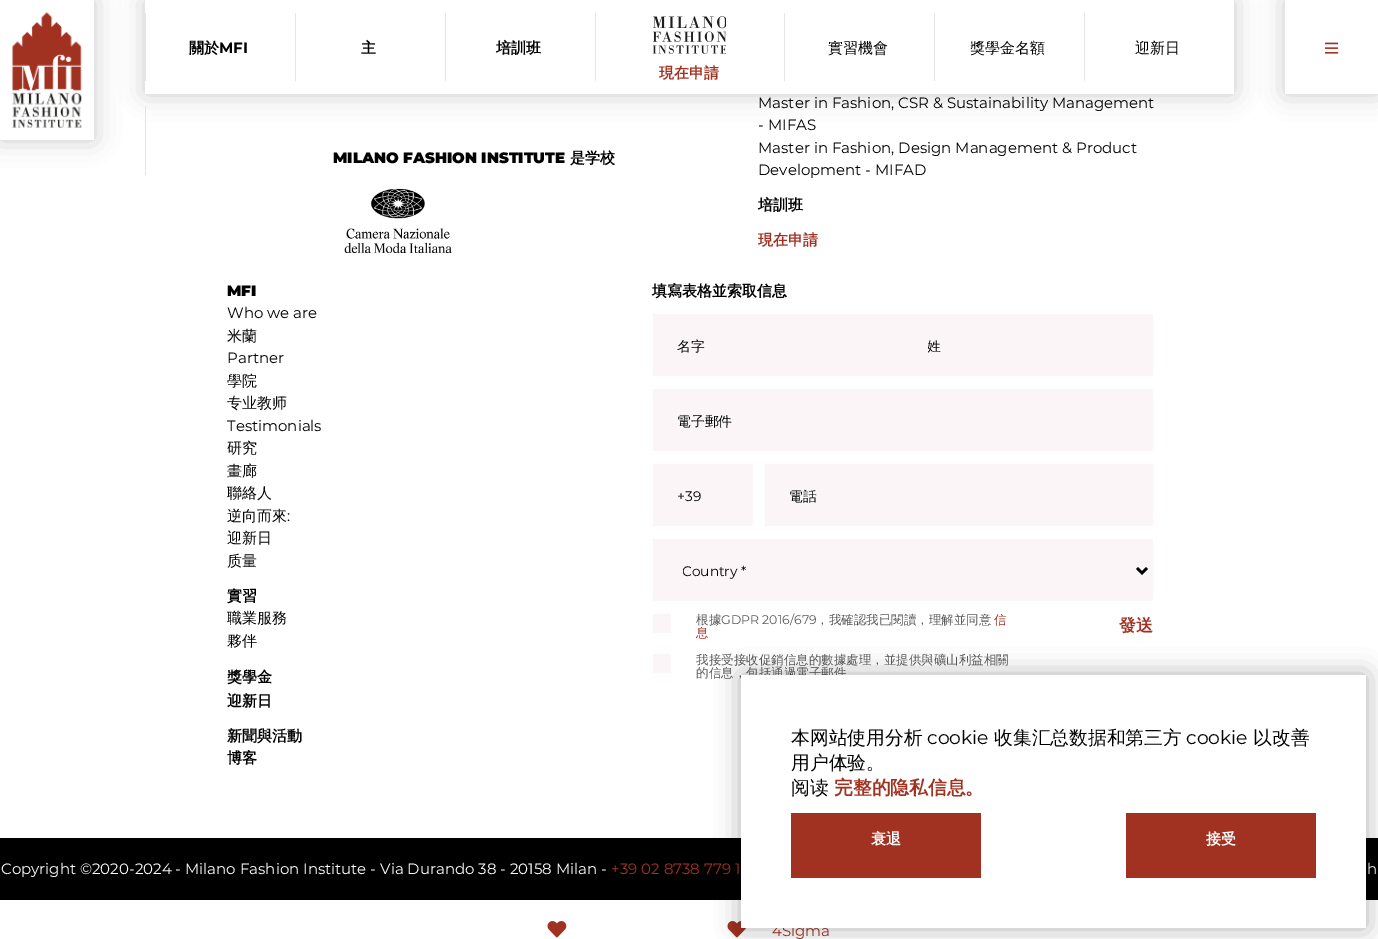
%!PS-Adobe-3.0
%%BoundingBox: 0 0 1378 939
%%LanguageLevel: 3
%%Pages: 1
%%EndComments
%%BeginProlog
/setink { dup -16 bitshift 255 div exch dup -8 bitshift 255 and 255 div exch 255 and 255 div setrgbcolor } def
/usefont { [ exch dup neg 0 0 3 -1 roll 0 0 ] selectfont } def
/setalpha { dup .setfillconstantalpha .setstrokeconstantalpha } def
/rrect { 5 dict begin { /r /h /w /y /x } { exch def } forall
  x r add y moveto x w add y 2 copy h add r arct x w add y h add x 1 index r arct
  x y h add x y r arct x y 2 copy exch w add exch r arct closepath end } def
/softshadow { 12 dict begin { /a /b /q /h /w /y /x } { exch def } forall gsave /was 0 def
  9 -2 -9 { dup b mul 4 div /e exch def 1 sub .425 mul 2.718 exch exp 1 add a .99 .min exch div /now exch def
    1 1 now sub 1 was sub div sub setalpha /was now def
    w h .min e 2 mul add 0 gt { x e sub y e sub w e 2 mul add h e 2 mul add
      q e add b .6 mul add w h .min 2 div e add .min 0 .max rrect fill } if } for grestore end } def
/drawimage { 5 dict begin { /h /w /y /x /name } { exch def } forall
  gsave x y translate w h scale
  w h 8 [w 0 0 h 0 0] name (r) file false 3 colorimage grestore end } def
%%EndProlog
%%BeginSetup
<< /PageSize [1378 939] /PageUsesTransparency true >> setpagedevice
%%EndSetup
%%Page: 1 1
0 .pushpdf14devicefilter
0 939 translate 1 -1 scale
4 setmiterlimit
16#FFFFFF setink
0 0 1378 939 rectfill
16#000000 setink
0 0 94 140 0 12.5 0.2 softshadow
16#FFFFFF setink
0 0 94 140 rectfill
(img1.raw) 12 12 70 116 drawimage
16#000000 setink
1285 0 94 94 0 12.5 0.2 softshadow
16#FFFFFF setink
1285 0 93 94 rectfill
(img2.raw) 1325 42 14 12 drawimage
16#000000 setink
145 0 1089 94 0 12.5 0.2 softshadow
16#FFFFFF setink
145 0 1089 94 rectfill
16#E5E5E5 setink
145 13 1 68 rectfill
/WenQuanYiZenHei-Bold 15 usefont
16#000000 setink
189 53 moveto (關於) show
/Montserrat-Bold 15 usefont
219 53 moveto (MFI) show
16#E5E5E5 setink
295 13 1 68 rectfill
/WenQuanYiZenHei-Bold 15 usefont
16#000000 setink
361 53 moveto (主) show
16#E5E5E5 setink
445 13 1 68 rectfill
16#000000 setink
496 53 moveto (培訓班) show
16#E5E5E5 setink
595 13 1 68 rectfill
784 13 1 68 rectfill
/WenQuanYiZenHei-Medium 15 usefont
16#000000 setink
828 53 moveto (實習機會) show
16#E5E5E5 setink
934 13 1 68 rectfill
16#000000 setink
970 53 moveto (獎學金名額) show
16#E5E5E5 setink
1084 13 1 68 rectfill
16#000000 setink
1135 53 moveto (迎新日) show
(img3.raw) 653 16 73 38 drawimage
/WenQuanYiZenHei-Bold 15 usefont
16#A13221 setink
659 78 moveto (現在申請) show
16#E5E5E5 setink
145 106 1 69 rectfill
/Montserrat-Black 15 usefont
16#000000 setink
333 163 moveto (MILANO FASHION INSTITUTE) show
/WenQuanYiZenHei-Bold 15 usefont
570 163 moveto (是学校) show
(img4.raw) 344 188 108 65 drawimage
/Montserrat-Regular 15 usefont
[
    [(Master in Fashion, CSR & Sustainability Management) 758 108]
    [(- MIFAS) 758 130]
    [(Master in Fashion, Design Management & Product) 758 153]
    [(Development - MIFAD) 758 175]
] { aload pop moveto show } forall
/WenQuanYiZenHei-Bold 15 usefont
758 210 moveto (培訓班) show
16#A13221 setink
758 245 moveto (現在申請) show
/Montserrat-Black 15 usefont
16#000000 setink
227 296 moveto (MFI) show
/Montserrat-Regular 15 usefont
227 318 moveto (Who we are) show
/WenQuanYiZenHei-Medium 15 usefont
227 341 moveto (米蘭) show
/Montserrat-Regular 15 usefont
227 363 moveto (Partner) show
/WenQuanYiZenHei-Medium 15 usefont
227 386 moveto (學院) show
227 408 moveto (专业教师) show
/Montserrat-Regular 15 usefont
227 431 moveto (Testimonials) show
/WenQuanYiZenHei-Medium 15 usefont
[
    [(研究) 227 453]
    [(畫廊) 227 476]
    [(聯絡人) 227 498]
    [(逆向而來) 227 521]
] { aload pop moveto show } forall
/Montserrat-Regular 15 usefont
287 521 moveto (:) show
/WenQuanYiZenHei-Medium 15 usefont
227 543 moveto (迎新日) show
227 566 moveto (质量) show
/WenQuanYiZenHei-Bold 15 usefont
227 601 moveto (實習) show
/WenQuanYiZenHei-Medium 15 usefont
227 623 moveto (職業服務) show
227 646 moveto (夥伴) show
/WenQuanYiZenHei-Bold 15 usefont
[
    [(獎學金) 227 682]
    [(迎新日) 227 706]
    [(新聞與活動) 227 741]
    [(博客) 227 763]
    [(填寫表格並索取信息) 652 296]
] { aload pop moveto show } forall
16#FBF5F8 setink
653 314 500 62 rectfill
/WenQuanYiZenHei-Medium 13.75 usefont
16#000000 setink
677 351 moveto (名字) show
gsave
928 336 225 19 rectclip
927 351 moveto (姓) show
grestore
16#FBF5F8 setink
653 389 500 62 rectfill
16#000000 setink
677 426 moveto (電子郵件) show
16#FBF5F8 setink
653 464 100 62 rectfill
/Montserrat-Regular 13.75 usefont
16#000000 setink
677 501 moveto (+39) show
16#FBF5F8 setink
765 464 388 62 rectfill
/WenQuanYiZenHei-Medium 13.75 usefont
16#000000 setink
789 501 moveto (電話) show
16#FBF5F8 setink
653 539 500 62 rectfill
16#000000 setink
2.5 setlinewidth
1137 568 moveto 1142 573 lineto 1147 568 lineto stroke
gsave
683 560 450 20 rectclip
/Montserrat-Regular 13.75 usefont
682 576 moveto (Country *) show
grestore
16#FBF5F8 setink
653 614 18 19 rectfill
/WenQuanYiZenHei-Medium 12.5 usefont
16#595959 setink
696 624 moveto (根據) show
/Montserrat-Regular 12.5 usefont
721 624 moveto (GDPR 2016/679) show
/WenQuanYiZenHei-Medium 12.5 usefont
816 624 moveto (，我確認我已閱讀，理解並同意) show
16#A13221 setink
994 624 moveto (信) show
696 637 moveto (息) show
/WenQuanYiZenHei-Bold 17 usefont
1119 631 moveto (發送) show
16#FBF5F8 setink
653 654 18 19 rectfill
/WenQuanYiZenHei-Medium 12.5 usefont
16#595959 setink
696 664 moveto (我接受接收促銷信息的數據處理，並提供與礦山利益相關) show
696 677 moveto (的信息，包括通過電子郵件) show
16#000000 setink
0 838 1378 62 rectfill
/Montserrat-Regular 15 usefont
16#FFFFFF setink
1 874 moveto (Copyright ©2020-2024 - Milano Fashion Institute - Via Durando 38 - 20158 Milan -) show
16#A13221 setink
611 874 moveto (+39 02 8738 779 1) show
16#FFFFFF setink
1367 874 moveto (h) show
(img5.raw) 547 921 20 17 drawimage
(img6.raw) 727 921 19 17 drawimage
16#A13221 setink
772 936 moveto (4Sigma) show
16#000000 setink
741 675 625 253 0 12.5 0.31 softshadow
16#FFFFFF setink
741 675 625 253 rectfill
/WenQuanYiZenHei-Medium 18.75 usefont
16#000000 setink
791 744 moveto (本网站使用分析) show
/Montserrat-Regular 18.75 usefont
927 744 moveto (cookie) show
/WenQuanYiZenHei-Medium 18.75 usefont
994 744 moveto (收集汇总数据和第三方) show
/Montserrat-Regular 18.75 usefont
1186 744 moveto (cookie) show
/WenQuanYiZenHei-Medium 18.75 usefont
[
    [(以改善) 1253 744]
    [(用户体验。) 791 769]
    [(阅读) 791 794]
] { aload pop moveto show } forall
/WenQuanYiZenHei-Bold 18.75 usefont
16#A13221 setink
834 794 moveto (完整的隐私信息。) show
791 813 190 65 rectfill
/WenQuanYiZenHei-Bold 15 usefont
16#FFFFFF setink
871 844 moveto (衰退) show
16#A13221 setink
1126 813 190 65 rectfill
16#FFFFFF setink
1206 844 moveto (接受) show
.poppdf14devicefilter showpage
%%EOF
